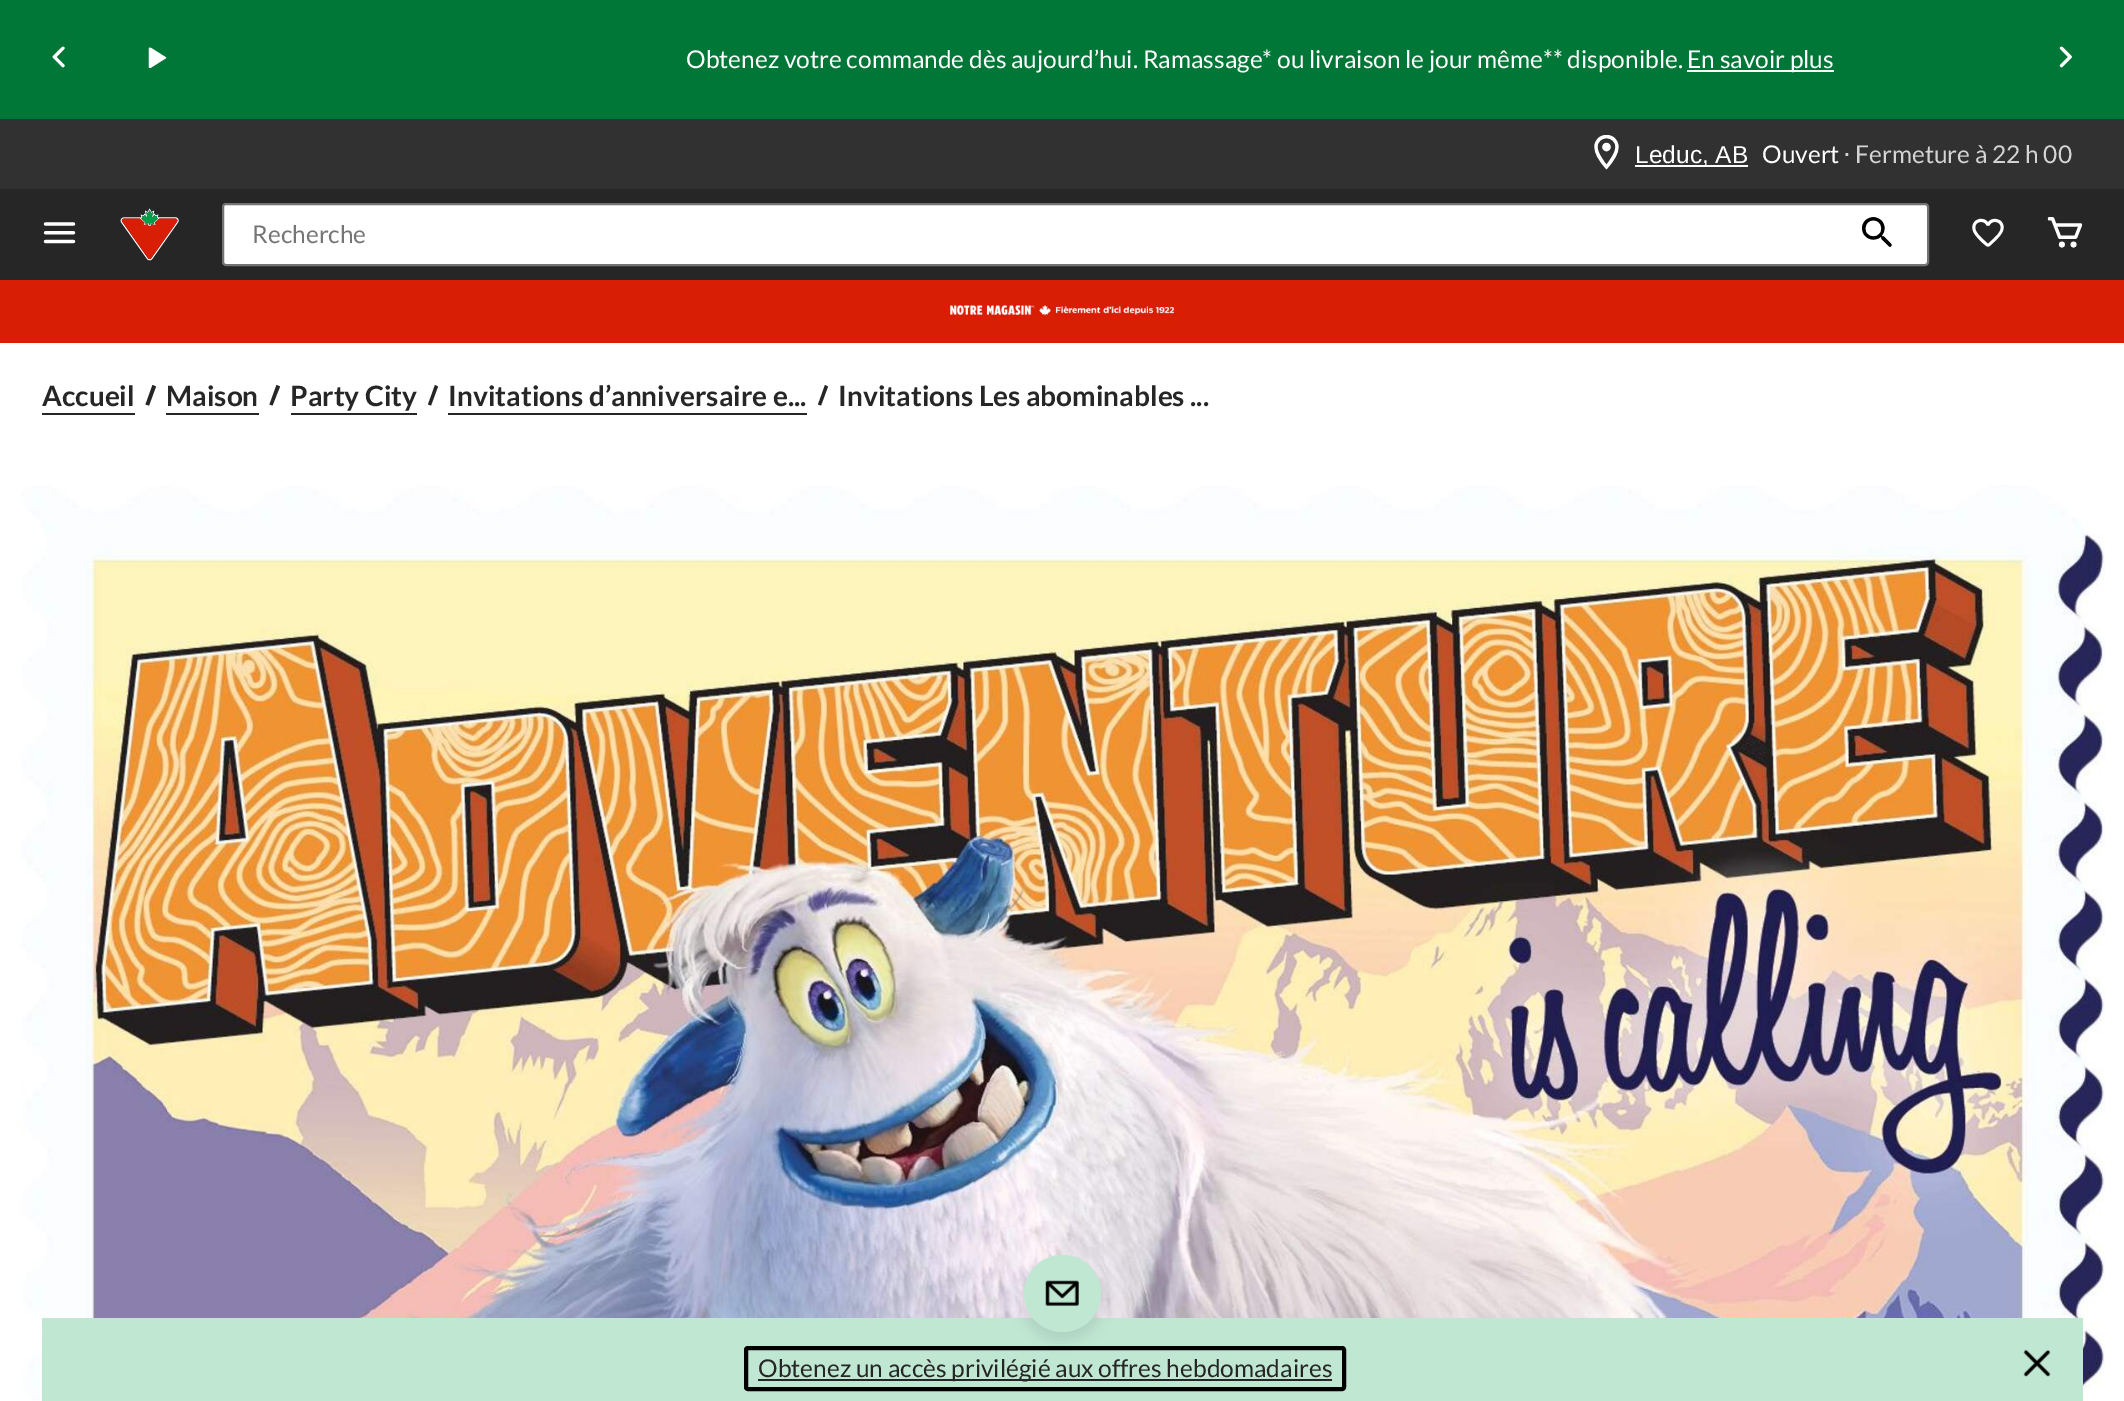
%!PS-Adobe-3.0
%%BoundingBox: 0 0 2124 1401
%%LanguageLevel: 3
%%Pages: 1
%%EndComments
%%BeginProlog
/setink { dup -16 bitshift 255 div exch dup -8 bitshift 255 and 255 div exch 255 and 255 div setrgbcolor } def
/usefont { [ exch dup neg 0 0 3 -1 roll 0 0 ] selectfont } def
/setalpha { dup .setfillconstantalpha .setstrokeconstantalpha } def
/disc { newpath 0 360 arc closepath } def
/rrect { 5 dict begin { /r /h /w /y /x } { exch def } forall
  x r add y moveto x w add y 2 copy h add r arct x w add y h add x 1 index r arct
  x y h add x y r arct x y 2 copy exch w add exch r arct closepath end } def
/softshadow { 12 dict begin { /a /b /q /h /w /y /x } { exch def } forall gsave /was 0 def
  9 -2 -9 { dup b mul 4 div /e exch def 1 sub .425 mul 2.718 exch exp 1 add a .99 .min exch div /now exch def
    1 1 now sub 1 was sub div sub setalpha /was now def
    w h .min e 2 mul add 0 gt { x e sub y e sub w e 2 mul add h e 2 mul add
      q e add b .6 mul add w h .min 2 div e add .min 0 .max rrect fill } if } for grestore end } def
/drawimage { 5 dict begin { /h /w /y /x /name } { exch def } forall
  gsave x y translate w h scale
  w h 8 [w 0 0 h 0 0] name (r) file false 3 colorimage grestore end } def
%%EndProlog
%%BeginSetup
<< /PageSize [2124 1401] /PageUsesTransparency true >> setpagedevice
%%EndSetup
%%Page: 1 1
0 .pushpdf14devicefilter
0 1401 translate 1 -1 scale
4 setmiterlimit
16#FFFFFF setink
0 0 2124 1401 rectfill
16#007637 setink
0 0 2124 119 rectfill
(img1.raw) 52 46 13 22 drawimage
(img2.raw) 148 47 19 21 drawimage
/Lato-Regular 24.5 usefont
16#FFFFFF setink
686 68 moveto (Obtenez votre commande dès aujourd’hui. Ramassage* ou livraison le jour même** disponible.) show
1687 70 147 2 rectfill
1687 68 moveto (En savoir plus) show
(img3.raw) 2059 46 13 22 drawimage
16#313131 setink
0 119 2124 70 rectfill
(img4.raw) 1594 135 25 35 drawimage
16#FFFFFF setink
1635 165 113 2 rectfill
/LiberationSans-Regular 24.5 usefont
1635 163 moveto (Leduc, AB) show
/Lato-Regular 24.5 usefont
1762 163 moveto (Ouvert) show
/DejaVuSans-Regular 24.5 usefont
16#D4D4D4 setink
1843 163 moveto (⋅) show
/Lato-Regular 24.5 usefont
1855 163 moveto (Fermeture à 22 h 00) show
16#262626 setink
0 189 2124 91 rectfill
(img5.raw) 43 222 33 22 drawimage
(img6.raw) 120 208 59 53 drawimage
16#FFFFFF setink
223 204 1705 61 3 rrect gsave fill grestore
16#737373 setink
2 setlinewidth
stroke
16#757575 setink
252 243 moveto (Recherche) show
(img7.raw) 1861 217 31 30 drawimage
(img8.raw) 1972 218 32 29 drawimage
(img9.raw) 2047 217 36 31 drawimage
16#D81E05 setink
0 280 2124 63 rectfill
(img10.raw) 941 304 243 18 drawimage
/Lato-Bold 28 usefont
16#262626 setink
42 406 moveto (Accueil) show
42 413 93 2 rectfill
152.5 385 moveto 156 386.5 lineto 149 405.5 lineto 145.5 404.5 lineto closepath fill
166 406 moveto (Maison) show
166 413 93 2 rectfill
276.5 385 moveto 280 386.5 lineto 272.5 405.5 lineto 269.5 404.5 lineto closepath fill
290 406 moveto (Party City) show
291 413 126 2 rectfill
435 385 moveto 438 386.5 lineto 431 405.5 lineto 428 404.5 lineto closepath fill
448 406 moveto (Invitations d’anniversaire e...) show
448 413 359 2 rectfill
825 385 moveto 828 386.5 lineto 821 405.5 lineto 818 404.5 lineto closepath fill
838 406 moveto (Invitations Les abominables ...) show
(img11.raw) 20 485 2085 916 drawimage
16#BFE7D1 setink
42 1318 2041 83 rectfill
16#000000 setink
4 setlinewidth
746 1348 598 41 2 rrect stroke
16#00001A setink
1024 1262 77 77 38.5 7 0.1 softshadow
16#BFE7D1 setink
1062.5 1293.5 38.5 disc fill
(img12.raw) 1045 1280 34 26 drawimage
16#262626 setink
758 1379 574 2 rectfill
/Lato-Regular 24.5 usefont
758 1377 moveto (Obtenez un accès privilégié aux offres hebdomadaires) show
(img13.raw) 2023 1349 28 28 drawimage
.poppdf14devicefilter showpage
%%EOF
